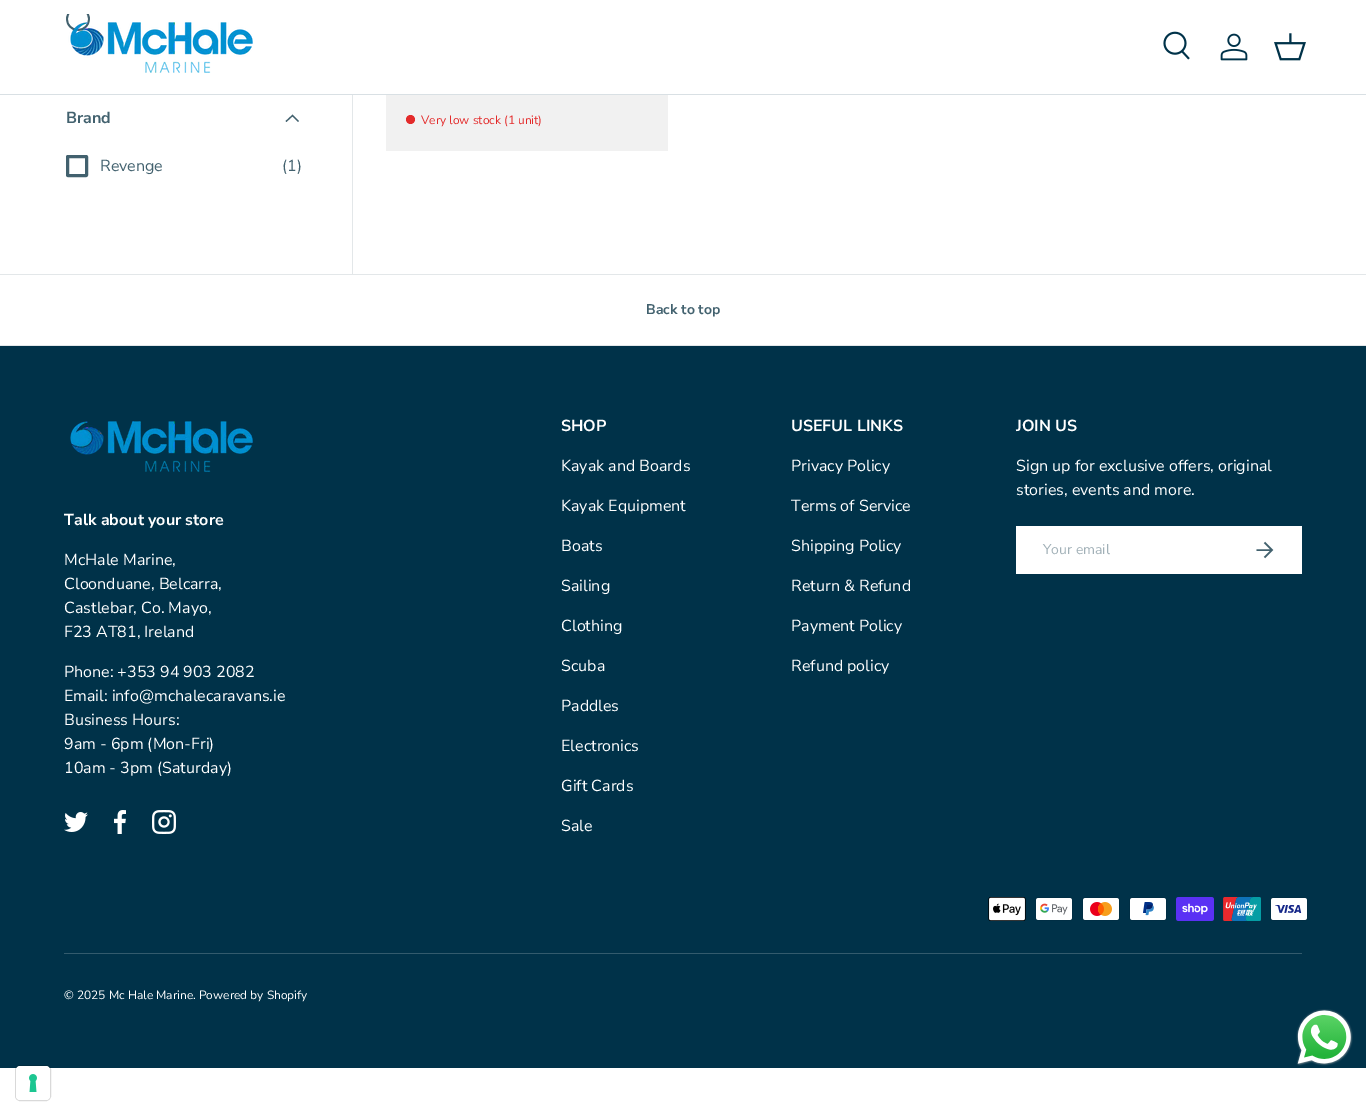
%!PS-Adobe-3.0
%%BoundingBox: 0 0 1366 1116
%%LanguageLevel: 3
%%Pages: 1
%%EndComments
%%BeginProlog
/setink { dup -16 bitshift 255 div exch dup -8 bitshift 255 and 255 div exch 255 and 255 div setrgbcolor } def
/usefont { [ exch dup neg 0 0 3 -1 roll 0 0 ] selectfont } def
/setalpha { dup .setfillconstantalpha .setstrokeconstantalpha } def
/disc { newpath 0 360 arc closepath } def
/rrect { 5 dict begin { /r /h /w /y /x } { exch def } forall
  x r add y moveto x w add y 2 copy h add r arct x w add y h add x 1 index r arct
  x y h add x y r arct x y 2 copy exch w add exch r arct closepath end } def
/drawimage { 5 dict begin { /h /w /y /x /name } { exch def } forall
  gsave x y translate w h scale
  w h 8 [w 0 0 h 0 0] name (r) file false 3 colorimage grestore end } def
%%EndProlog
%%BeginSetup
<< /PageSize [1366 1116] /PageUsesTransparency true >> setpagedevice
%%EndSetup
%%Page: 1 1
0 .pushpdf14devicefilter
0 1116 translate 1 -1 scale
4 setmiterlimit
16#FFFFFF setink
0 0 1366 1116 rectfill
16#D9E0E4 setink
0 94 1366 1 rectfill
(img1.raw) 66 14 187 59 drawimage
(img2.raw) 1163 31 27 29 drawimage
(img3.raw) 1220 33 28 28 drawimage
(img4.raw) 1274 33 32 28 drawimage
16#E3E7E9 setink
352 95 1 179 rectfill
/NunitoSans-Bold 16 usefont
16#42616E setink
66 123 moveto (Brand) show
1.2 setlinewidth
298.5 121.5 moveto 292.5 115.5 lineto 286 121.5 lineto stroke
3 setlinewidth
67.5 156.5 19 19 0.5 rrect stroke
/NunitoSans-Regular 16 usefont
100 171 moveto (Revenge) show
282 171 moveto (\(1\)) show
16#F1F1F1 setink
386 95 282 56 rectfill
16#E32B2B setink
410.5 119.5 4.5 disc fill
/NunitoSans-Regular 12 usefont
421 124 moveto (Very low stock \(1 unit\)) show
16#E3E7E9 setink
0 274 1366 1 rectfill
0 345 1366 1 rectfill
/NunitoSans-Bold 14 usefont
16#42616E setink
646 314 moveto (Back to top) show
16#003249 setink
0 346 1366 722 rectfill
/NunitoSans-Bold 16 usefont
16#FFFFFF setink
561 431 moveto (SHOP) show
/NunitoSans-Regular 16 usefont
[
    [(Kayak and Boards) 561 471]
    [(Kayak Equipment) 561 511]
    [(Boats) 561 551]
    [(Sailing) 561 591]
    [(Clothing) 561 631]
    [(Scuba) 561 671]
    [(Paddles) 561 711]
    [(Electronics) 561 751]
    [(Gift Cards) 561 791]
    [(Sale) 561 831]
] { aload pop moveto show } forall
/NunitoSans-Bold 16 usefont
791 431 moveto (USEFUL LINKS) show
/NunitoSans-Regular 16 usefont
[
    [(Privacy Policy) 791 471]
    [(Terms of Service) 791 511]
    [(Shipping Policy) 791 551]
    [(Return & Refund) 791 591]
    [(Payment Policy) 791 631]
    [(Refund policy) 791 671]
] { aload pop moveto show } forall
/NunitoSans-Bold 16 usefont
1016 431 moveto (JOIN US) show
/NunitoSans-Regular 16 usefont
1016 471 moveto (Sign up for exclusive offers, original) show
1016 495 moveto (stories, events and more.) show
1016 526 286 48 rectfill
/NunitoSans-Regular 14 usefont
16#A1B0B7 setink
1043 554 moveto (Your email) show
16#42616E setink
1.5 setlinewidth
1256.5 550 moveto 1271.5 550 lineto 1264.5 542.5 moveto 1272 550 lineto 1264.5 557.5 lineto stroke
(img5.raw) 70 421 183 51 drawimage
/NunitoSans-Bold 16 usefont
16#FFFFFF setink
64 525 moveto (Talk about your store) show
/NunitoSans-Regular 16 usefont
[
    [(McHale Marine,) 64 565]
    [(Cloonduane, Belcarra,) 64 589]
    [(Castlebar, Co. Mayo,) 64 613]
    [(F23 AT81, Ireland) 64 637]
    [(Phone: +353 94 903 2082) 64 677]
    [(Email: info@mchalecaravans.ie) 64 701]
    [(Business Hours:) 64 725]
    [(9am - 6pm \(Mon-Fri\)) 64 749]
    [(10am - 3pm \(Saturday\)) 64 773]
] { aload pop moveto show } forall
(img6.raw) 64 812 24 20 drawimage
(img7.raw) 114 810 12 24 drawimage
(img8.raw) 152 810 24 24 drawimage
(img9.raw) 988 897 38 24 drawimage
(img10.raw) 1035 897 38 24 drawimage
(img11.raw) 1082 897 38 24 drawimage
(img12.raw) 1129 897 38 24 drawimage
(img13.raw) 1176 897 38 24 drawimage
(img14.raw) 1223 897 38 24 drawimage
(img15.raw) 1270 897 38 24 drawimage
16#335B6D setink
64 953 1238 1 rectfill
/NunitoSans-Regular 12 usefont
16#FFFFFF setink
64 999 moveto (© 2025 Mc Hale Marine. Powered by Shopify) show
(img16.raw) 1296 1009 57 57 drawimage
0.15 setalpha
16#000000 setink
1 setlinewidth
15.5 1065.5 35 35 4.5 rrect stroke
1 setalpha
16#FFFFFF setink
16 1066 34 34 4 rrect fill
(img17.raw) 29 1074 8 18 drawimage
.poppdf14devicefilter showpage
%%EOF
